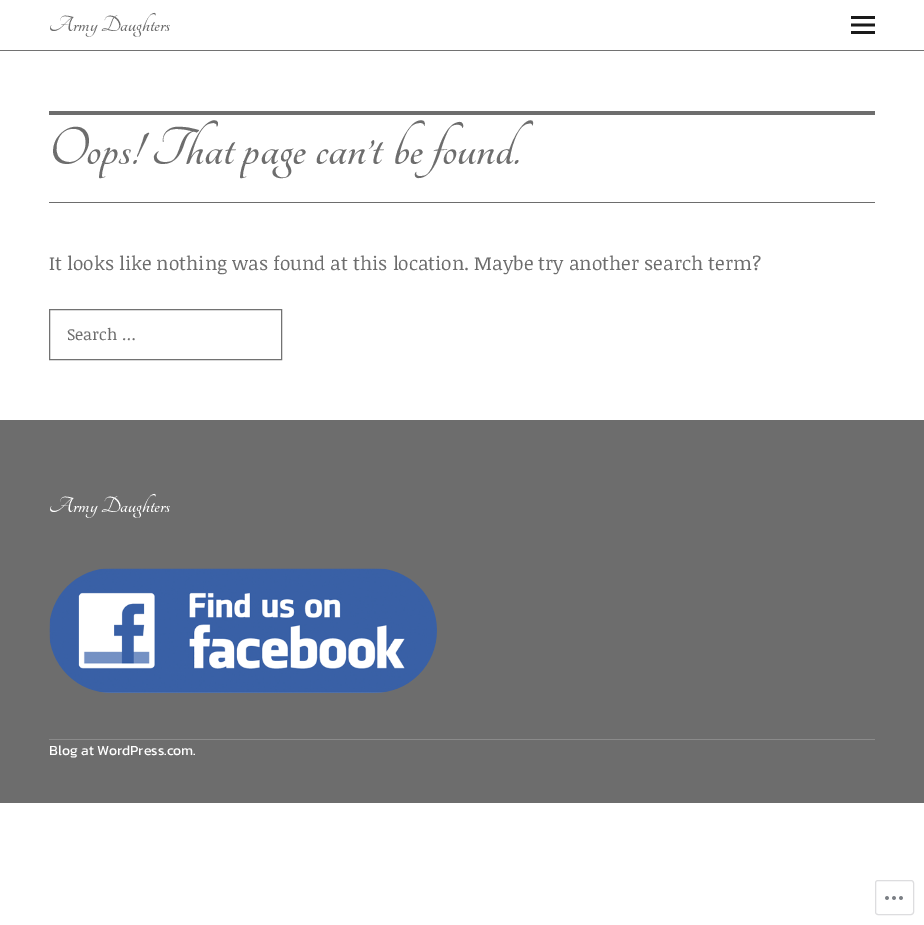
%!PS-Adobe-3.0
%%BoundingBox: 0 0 924 925
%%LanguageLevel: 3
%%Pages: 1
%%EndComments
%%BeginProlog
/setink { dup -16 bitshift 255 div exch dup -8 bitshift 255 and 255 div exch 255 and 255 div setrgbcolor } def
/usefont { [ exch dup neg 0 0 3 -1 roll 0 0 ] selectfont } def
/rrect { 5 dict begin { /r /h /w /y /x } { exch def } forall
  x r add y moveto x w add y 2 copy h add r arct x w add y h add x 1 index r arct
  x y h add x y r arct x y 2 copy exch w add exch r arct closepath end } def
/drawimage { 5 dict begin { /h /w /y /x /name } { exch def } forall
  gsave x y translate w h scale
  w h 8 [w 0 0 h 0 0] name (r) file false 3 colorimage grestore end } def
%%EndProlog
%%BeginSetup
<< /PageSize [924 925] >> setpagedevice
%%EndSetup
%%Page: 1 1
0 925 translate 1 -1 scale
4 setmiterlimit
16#FFFFFF setink
0 0 924 925 rectfill
16#727272 setink
0 50 924 1 rectfill
/Tangerine-Bold 24 usefont
16#6D6D6D setink
49 31 moveto (Army Daughters) show
(img1.raw) 851 16 24 18 drawimage
49 111 826 4 rectfill
49 202 826 1 rectfill
/Tangerine-Bold 58 usefont
49 164 moveto (Oops! That page can’t be found.) show
/NoticiaText-Regular 19 usefont
49 270 moveto (It looks like nothing was found at this location. Maybe try another search term?) show
16#727272 setink
49.5 309.5 232 50 rectstroke
/NoticiaText-Regular 16 usefont
16#6D6D6D setink
67 340 moveto (Search …) show
0 420 924 383 rectfill
/Tangerine-Bold 24 usefont
16#FFFFFF setink
49 512 moveto (Army Daughters) show
16#8A8A8A setink
49 739 826 1 rectfill
(img2.raw) 49 568 388 125 drawimage
/Kanit-Regular 14 usefont
16#FFFFFF setink
49 755 moveto (Blog at WordPress.com.) show
16#DDDDDF setink
875.5 880.5 38 34 2.5 rrect stroke
(img3.raw) 885 896 18 4 drawimage
showpage
%%EOF
